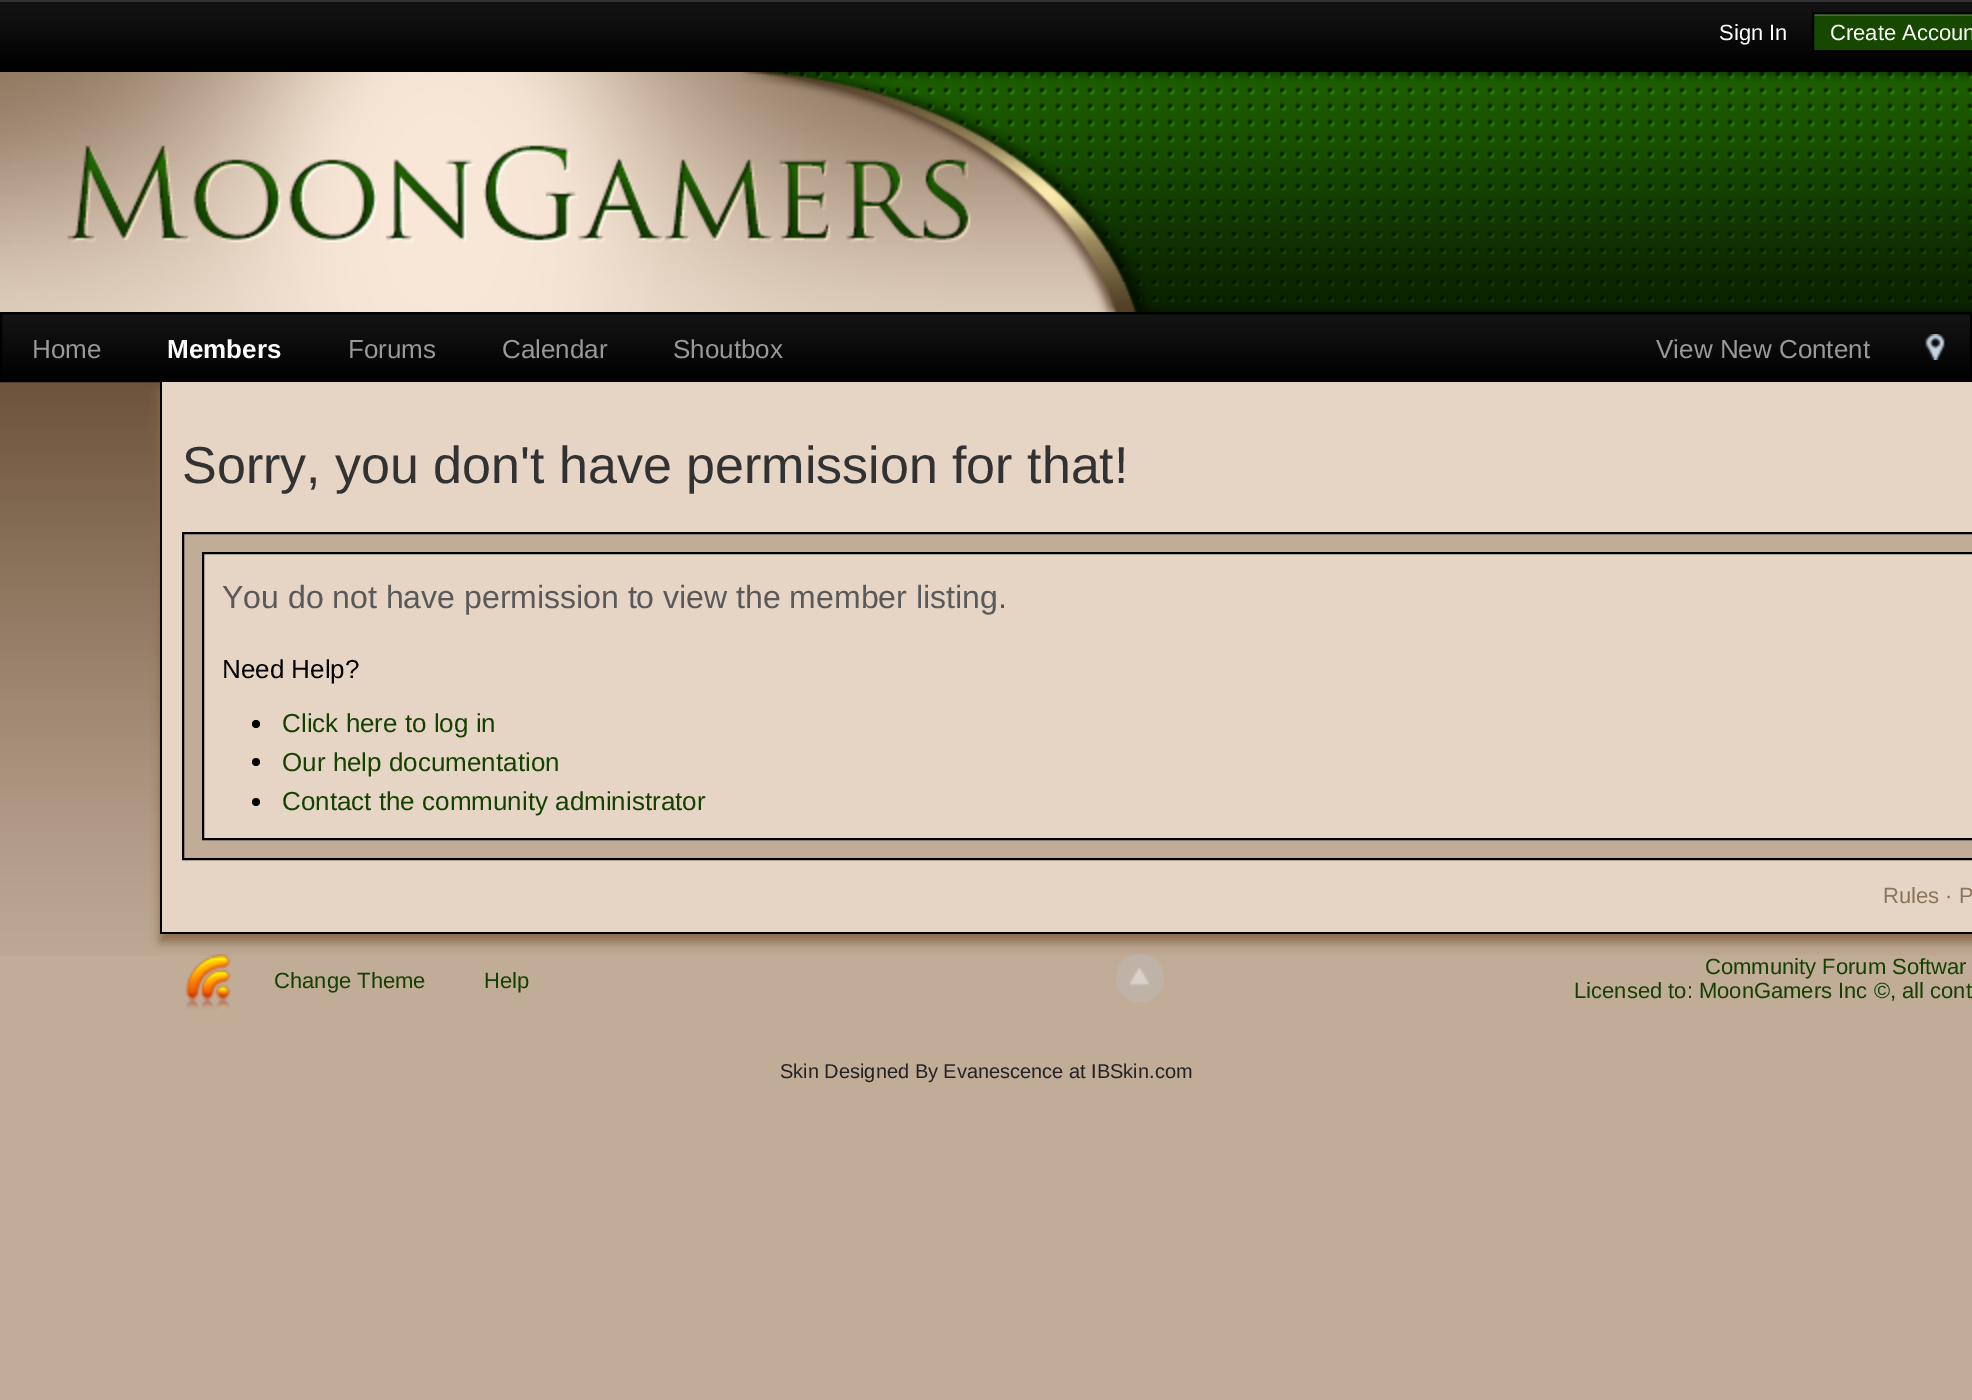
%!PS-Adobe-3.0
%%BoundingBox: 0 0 1972 1400
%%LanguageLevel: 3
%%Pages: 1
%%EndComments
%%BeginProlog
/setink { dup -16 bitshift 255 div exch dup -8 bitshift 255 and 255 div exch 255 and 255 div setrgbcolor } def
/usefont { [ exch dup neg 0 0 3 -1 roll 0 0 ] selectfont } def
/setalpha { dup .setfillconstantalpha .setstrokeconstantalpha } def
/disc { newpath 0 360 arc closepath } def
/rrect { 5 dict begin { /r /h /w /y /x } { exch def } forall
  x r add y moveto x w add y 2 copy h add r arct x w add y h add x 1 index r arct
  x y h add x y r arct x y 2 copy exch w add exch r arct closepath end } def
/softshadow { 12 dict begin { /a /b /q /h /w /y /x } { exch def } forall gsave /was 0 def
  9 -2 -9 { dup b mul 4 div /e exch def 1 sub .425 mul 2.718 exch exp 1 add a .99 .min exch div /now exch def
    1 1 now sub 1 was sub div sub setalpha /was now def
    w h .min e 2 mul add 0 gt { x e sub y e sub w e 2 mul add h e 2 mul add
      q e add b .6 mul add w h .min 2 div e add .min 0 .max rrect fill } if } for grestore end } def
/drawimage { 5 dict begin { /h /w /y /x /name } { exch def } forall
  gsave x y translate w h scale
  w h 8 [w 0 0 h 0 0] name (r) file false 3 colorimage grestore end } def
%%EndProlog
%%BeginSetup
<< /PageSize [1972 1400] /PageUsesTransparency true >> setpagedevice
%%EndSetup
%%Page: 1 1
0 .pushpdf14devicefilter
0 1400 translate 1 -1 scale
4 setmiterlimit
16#C1AC98 setink
0 0 1972 1400 rectfill
(img1.raw) 0 382 1972 574 drawimage
16#323232 setink
0 0 1972 2 rectfill
(img2.raw) 0 2 1972 70 drawimage
/LiberationSans-Regular 22 usefont
16#FFFFFF setink
1719 40 moveto (Sign In) show
16#164800 setink
1814 16 158 34 rectfill
16#456D33 setink
1814 14 158 2 rectfill
16#000000 setink
2 setlinewidth
1813 13 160 38 rectstroke
16#FFFFFF setink
1830 40 moveto (Create Accoun) show
(img3.raw) 1280 72 692 240 drawimage
(img4.raw) 0 72 1280 240 drawimage
(img5.raw) 2 314 1968 66 drawimage
16#000000 setink
1 313 1970 68 rectstroke
/LiberationSans-Regular 26 usefont
16#999999 setink
32 358 moveto (Home) show
/LiberationSans-Bold 26 usefont
16#FFFFFF setink
167 358 moveto (Members) show
/LiberationSans-Regular 26 usefont
16#999999 setink
[
    [(Forums) 348 358]
    [(Calendar) 502 358]
    [(Shoutbox) 673 358]
    [(View New Content) 1656 358]
] { aload pop moveto show } forall
(img6.raw) 1925 334 20 26 drawimage
16#8A6B4D setink
160 390 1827 552 0 5 1 softshadow
[
    [162 382 1810 550 16#E6D5C5]
    [160 932 1812 2 16#000000]
    [160 382 2 552 16#000000]
] { aload pop setink rectfill } forall
/LiberationSans-Regular 52 usefont
16#323232 setink
182 483 moveto (Sorry, you don't have permission for that!) show
16#C1AC98 setink
183 533 moveto 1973 533 lineto 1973 859 lineto 183 859 lineto closepath gsave fill grestore
16#000000 setink
stroke
16#E6D5C5 setink
203 553 moveto 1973 553 lineto 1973 839 lineto 203 839 lineto closepath gsave fill grestore
16#000000 setink
stroke
/LiberationSans-Regular 32 usefont
16#595959 setink
222 608 moveto (You do not have permission to view the member listing.) show
/LiberationSans-Regular 26 usefont
16#000000 setink
222 678 moveto (Need Help?) show
256 724 4 disc fill
16#144000 setink
282 732 moveto (Click here to log in) show
16#000000 setink
256 762 4 disc fill
16#144000 setink
282 771 moveto (Our help documentation) show
16#000000 setink
256 802 4 disc fill
16#144000 setink
282 810 moveto (Contact the community administrator) show
/LiberationSans-Regular 22 usefont
16#8B745C setink
1883 903 moveto (Rules ·) show
1959 903 moveto (P) show
(img7.raw) 185 954 46 56 drawimage
16#144000 setink
274 988 moveto (Change Theme) show
484 988 moveto (Help) show
0.4 setalpha
16#BDBDBD setink
1140 978 24 disc fill
1 setalpha
(img8.raw) 1129 967 21 19 drawimage
16#144000 setink
1705 974 moveto (Community Forum Softwar) show
1574 998 moveto (Licensed to: MoonGamers Inc ©, all cont) show
/LiberationSans-Regular 20 usefont
16#222222 setink
780 1078 moveto (Skin Designed By Evanescence at IBSkin.com) show
.poppdf14devicefilter showpage
%%EOF
